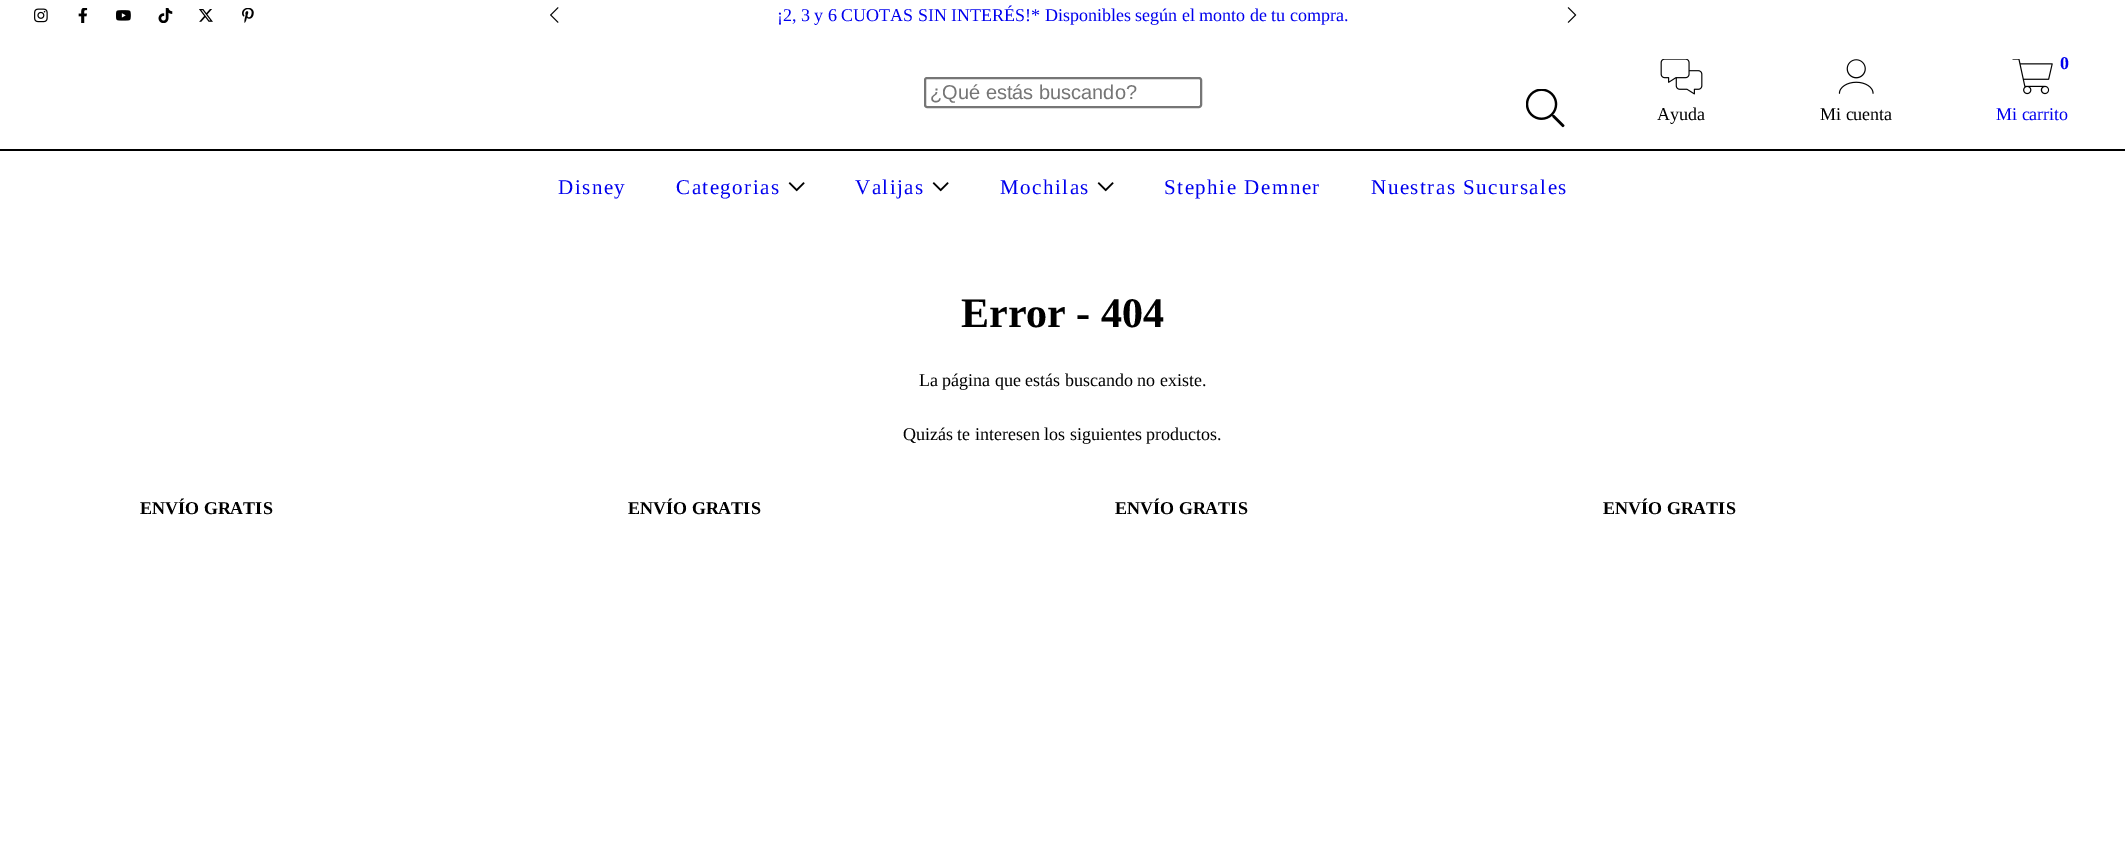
%!PS-Adobe-3.0
%%BoundingBox: 0 0 2125 862
%%LanguageLevel: 3
%%Pages: 1
%%EndComments
%%BeginProlog
/setink { dup -16 bitshift 255 div exch dup -8 bitshift 255 and 255 div exch 255 and 255 div setrgbcolor } def
/usefont { [ exch dup neg 0 0 3 -1 roll 0 0 ] selectfont } def
/rrect { 5 dict begin { /r /h /w /y /x } { exch def } forall
  x r add y moveto x w add y 2 copy h add r arct x w add y h add x 1 index r arct
  x y h add x y r arct x y 2 copy exch w add exch r arct closepath end } def
/drawimage { 5 dict begin { /h /w /y /x /name } { exch def } forall
  gsave x y translate w h scale
  w h 8 [w 0 0 h 0 0] name (r) file false 3 colorimage grestore end } def
%%EndProlog
%%BeginSetup
<< /PageSize [2125 862] >> setpagedevice
%%EndSetup
%%Page: 1 1
0 862 translate 1 -1 scale
4 setmiterlimit
16#FFFFFF setink
0 0 2125 862 rectfill
(img1.raw) 34 8 14 15 drawimage
(img2.raw) 78 8 10 15 drawimage
(img3.raw) 116 10 15 11 drawimage
(img4.raw) 158 8 15 15 drawimage
(img5.raw) 199 9 14 13 drawimage
(img6.raw) 242 8 12 15 drawimage
(img7.raw) 550 7 9 16 drawimage
/LiberationSerif-Regular 18 usefont
16#0000EE setink
777 21 moveto (¡2, 3 y 6 CUOTAS SIN INTERÉS!* Disponibles según el monto de tu compra.) show
(img8.raw) 1567 7 10 16 drawimage
16#767676 setink
2 setlinewidth
925 78 276 29 2 rrect stroke
/LiberationSans-Regular 20 usefont
16#757575 setink
930 99 moveto (¿Qué estás buscando?) show
(img9.raw) 1526 89 39 39 drawimage
(img10.raw) 1660 59 43 36 drawimage
/LiberationSerif-Regular 18 usefont
16#000000 setink
1657 120 moveto (Ayuda) show
(img11.raw) 1838 59 36 35 drawimage
1820 120 moveto (Mi cuenta) show
(img12.raw) 2012 59 41 36 drawimage
/LiberationSerif-Bold 18 usefont
16#0000EE setink
2060 69 moveto (0) show
/LiberationSerif-Regular 18 usefont
1996 120 moveto (Mi carrito) show
16#000000 setink
0 149 2125 2 rectfill
/LiberationSerif-Regular 21 usefont
16#0000EE setink
558 194 moveto 1.5 0 (Disney) ashow
676 194 moveto 1.5 0 (Categorias) ashow
(img13.raw) 788 182 17 10 drawimage
855 194 moveto 1.5 0 (Valijas) ashow
(img13.raw) 932 182 17 10 drawimage
1000 194 moveto 1.5 0 (Mochilas) ashow
(img13.raw) 1097 182 17 10 drawimage
1164 194 moveto 1.5 0 (Stephie Demner) ashow
1371 194 moveto 1.5 0 (Nuestras Sucursales) ashow
/LiberationSerif-Bold 42 usefont
16#000000 setink
961 327 moveto (Error - 404) show
/LiberationSerif-Regular 18 usefont
919 386 moveto (La página que estás buscando no existe.) show
903 440 moveto (Quizás te interesen los siguientes productos.) show
/LiberationSerif-Bold 18 usefont
[
    [(ENVÍO GRATIS) 140 514]
    [(ENVÍO GRATIS) 628 514]
    [(ENVÍO GRATIS) 1115 514]
    [(ENVÍO GRATIS) 1603 514]
] { aload pop moveto show } forall
showpage
%%EOF
